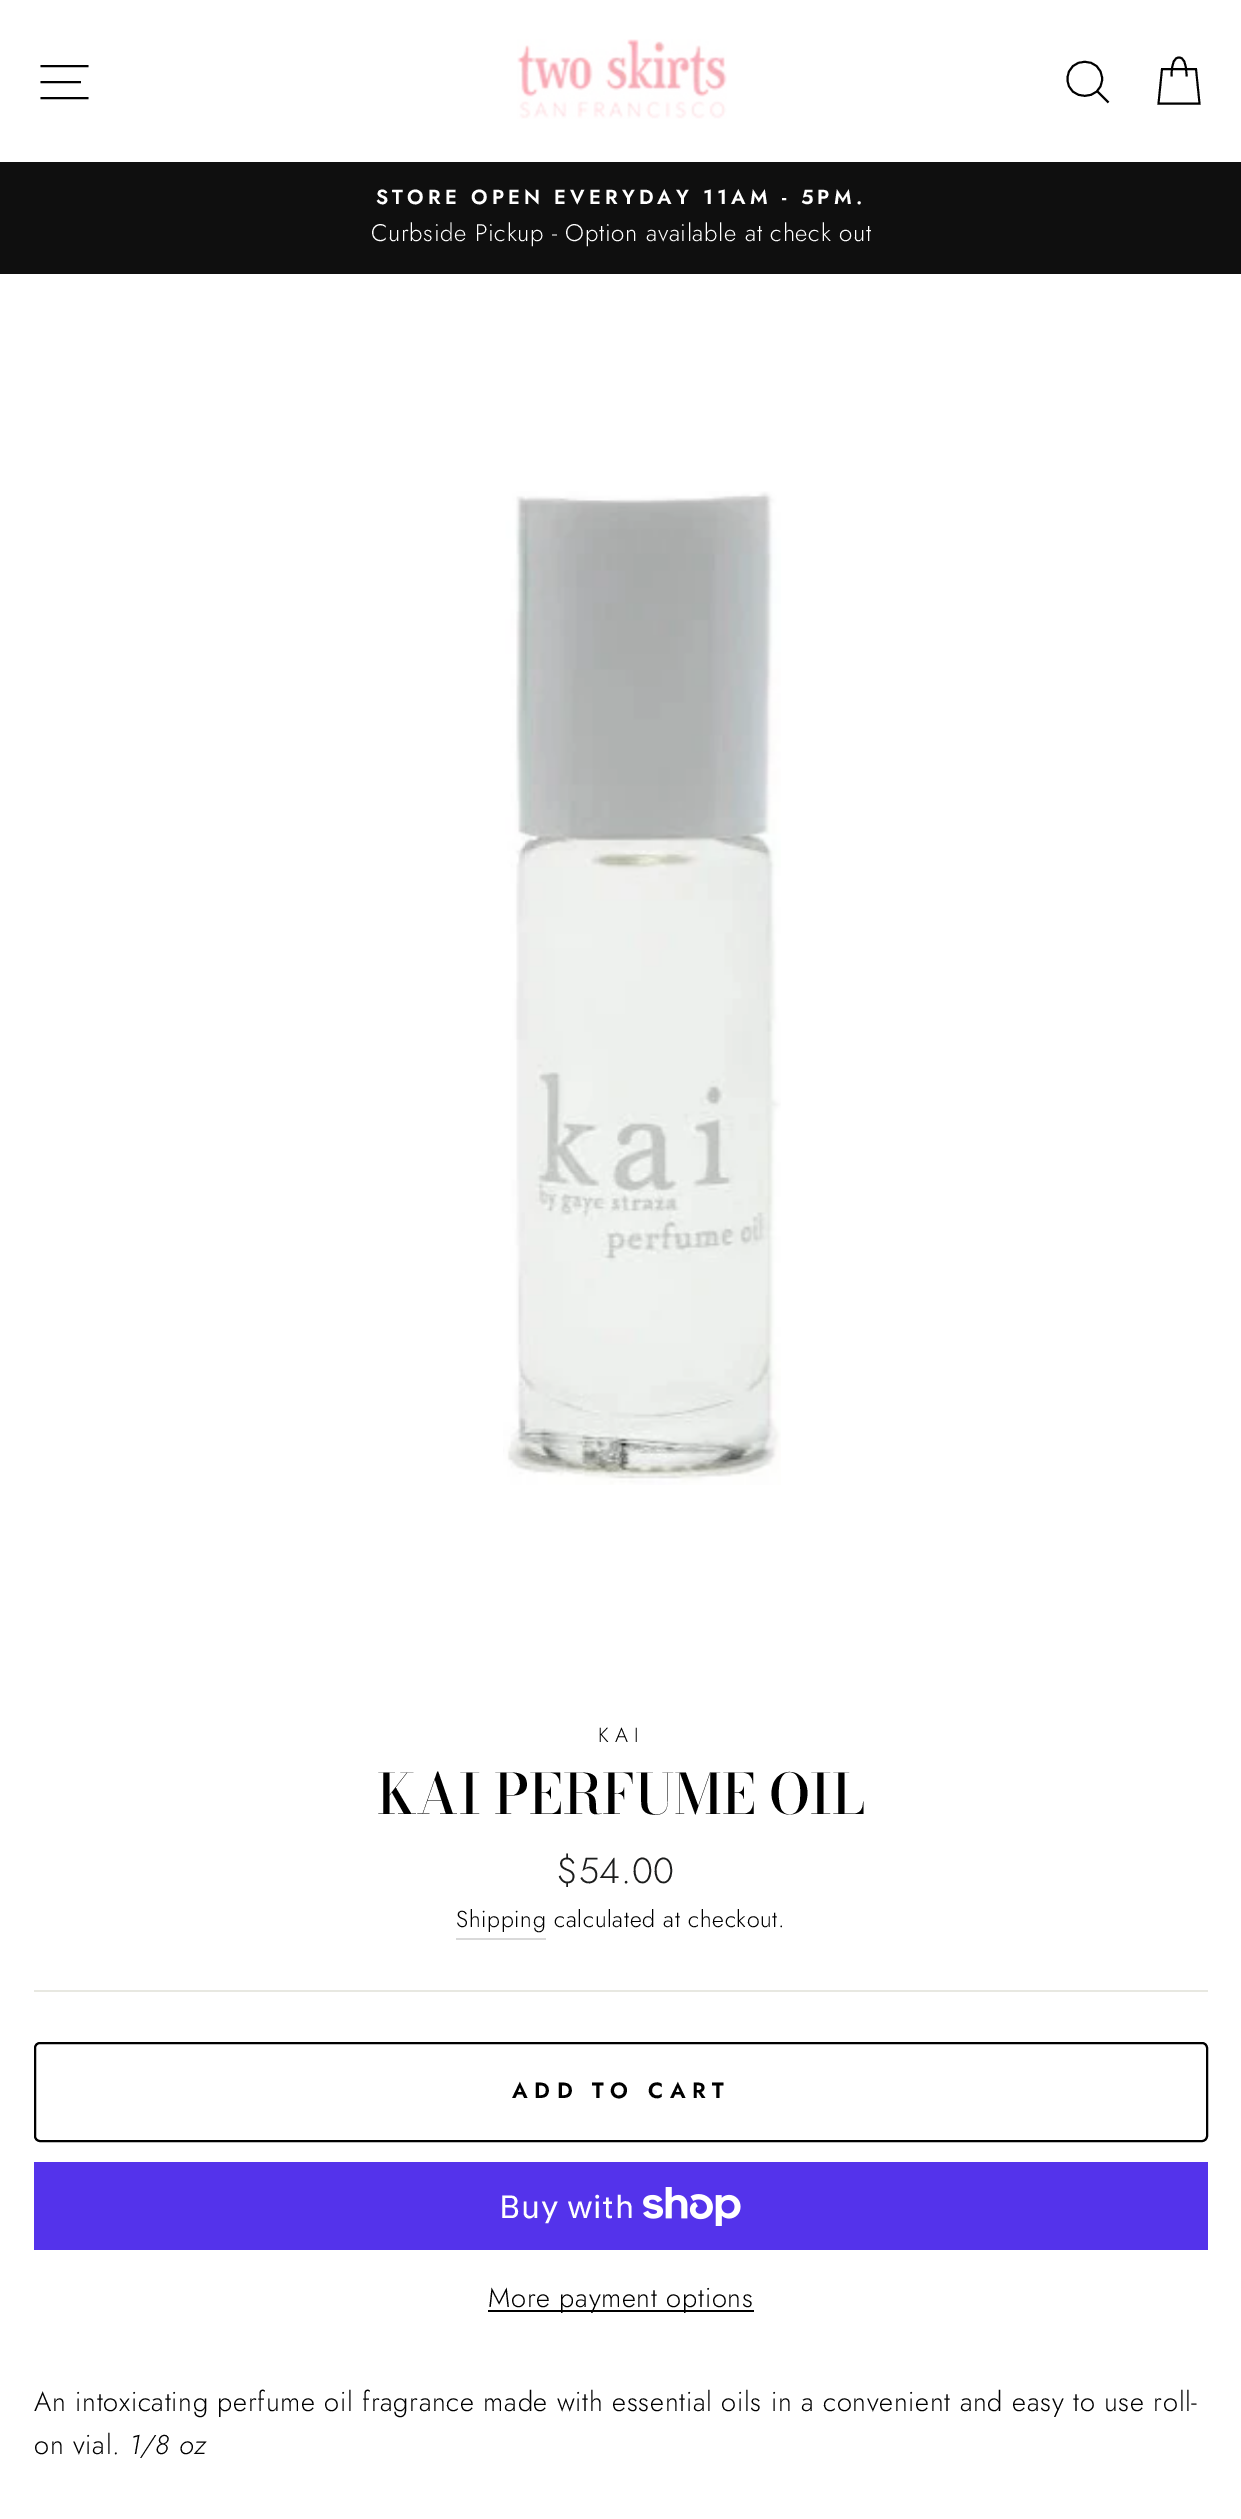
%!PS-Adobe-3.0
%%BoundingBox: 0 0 1241 2519
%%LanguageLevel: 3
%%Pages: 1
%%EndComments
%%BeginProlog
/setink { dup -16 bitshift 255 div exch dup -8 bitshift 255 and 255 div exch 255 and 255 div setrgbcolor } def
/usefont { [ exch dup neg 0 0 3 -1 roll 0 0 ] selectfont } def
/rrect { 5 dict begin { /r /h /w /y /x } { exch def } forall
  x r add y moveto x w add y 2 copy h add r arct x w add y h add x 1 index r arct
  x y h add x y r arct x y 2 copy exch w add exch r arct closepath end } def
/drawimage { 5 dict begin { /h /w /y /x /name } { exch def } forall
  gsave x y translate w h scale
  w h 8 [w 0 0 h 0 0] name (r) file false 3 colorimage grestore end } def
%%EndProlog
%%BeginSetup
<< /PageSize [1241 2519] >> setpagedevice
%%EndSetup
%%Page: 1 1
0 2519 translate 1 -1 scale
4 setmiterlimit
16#FFFFFF setink
0 0 1241 2519 rectfill
16#000000 setink
1.9 setlinewidth
40.5 66 moveto 88.5 66 lineto 40.5 82 moveto 81 82 lineto 40.5 98 moveto 88.5 98 lineto stroke
(img1.raw) 517 39 210 80 drawimage
1102 79 moveto 1102 101.5 1067.5 101.5 1067.5 79 curveto 1067.5 56 1102 56 1102 79 curveto closepath 1108.5 102.5 moveto 1097.5 91.5 lineto stroke
1171.5 76.5 moveto 1171.5 61.5 1175 57.5 1179 57.5 curveto 1183 57.5 1186.5 61.5 1186.5 76.5 curveto 1162 69 moveto 1196 69 lineto 1199.5 103.5 lineto 1158.5 103.5 lineto closepath stroke
16#0F0F0F setink
0 162 1241 112 rectfill
/Jost-SemiBold 20.4 usefont
16#FFFFFF setink
376 204 moveto 4.1 0 (STORE OPEN EVERYDAY 11AM - 5PM.) ashow
/Jost-Light 24 usefont
371 241 moveto 0.68 0 (Curbside Pickup - Option available at check out) ashow
(img2.raw) 503 491 278 994 drawimage
/Jost-Light 20.4 usefont
16#000000 setink
598 1742 moveto 6 0 (KAI) ashow
/BodoniModa-Medium 55.5 usefont
377 1814 moveto (KAI PERFUME OIL) show
/Jost-Light 36 usefont
16#1C1D1D setink
557 1883 moveto 0.68 0 ($54.00) ashow
16#D9D9D9 setink
456 1938 90 2 rectfill
/Jost-Light 23.1 usefont
16#000000 setink
456 1927 moveto 0.68 0 (Shipping) ashow
554 1927 moveto 0.68 0 (calculated at checkout.) ashow
16#E8E8E1 setink
34 1990 1174 2 rectfill
16#000000 setink
2 setlinewidth
35 2043 1172 98 5 rrect stroke
/Jost-SemiBold 22 usefont
512 2098 moveto 6.6 0 (ADD TO CART) ashow
16#5433EB setink
34 2162 1174 88 rectfill
/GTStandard-Regular 32 usefont
16#FFFFFF setink
499 2218 moveto 0.68 0 (Buy with) ashow
(img3.raw) 643 2187 98 39 drawimage
16#000000 setink
488 2310 266 2 rectfill
/Jost-Light 27.2 usefont
488 2307 moveto 0.68 0 (More payment options) ashow
34 2411 moveto 0.68 0 (An intoxicating perfume oil fragrance made with essential oils in a convenient and easy to use roll-) ashow
34 2454 moveto 0.68 0 (on vial.) ashow
/Jost-LightItalic 27.2 usefont
129 2454 moveto 0.68 0 (1/8 oz) ashow
showpage
%%EOF
